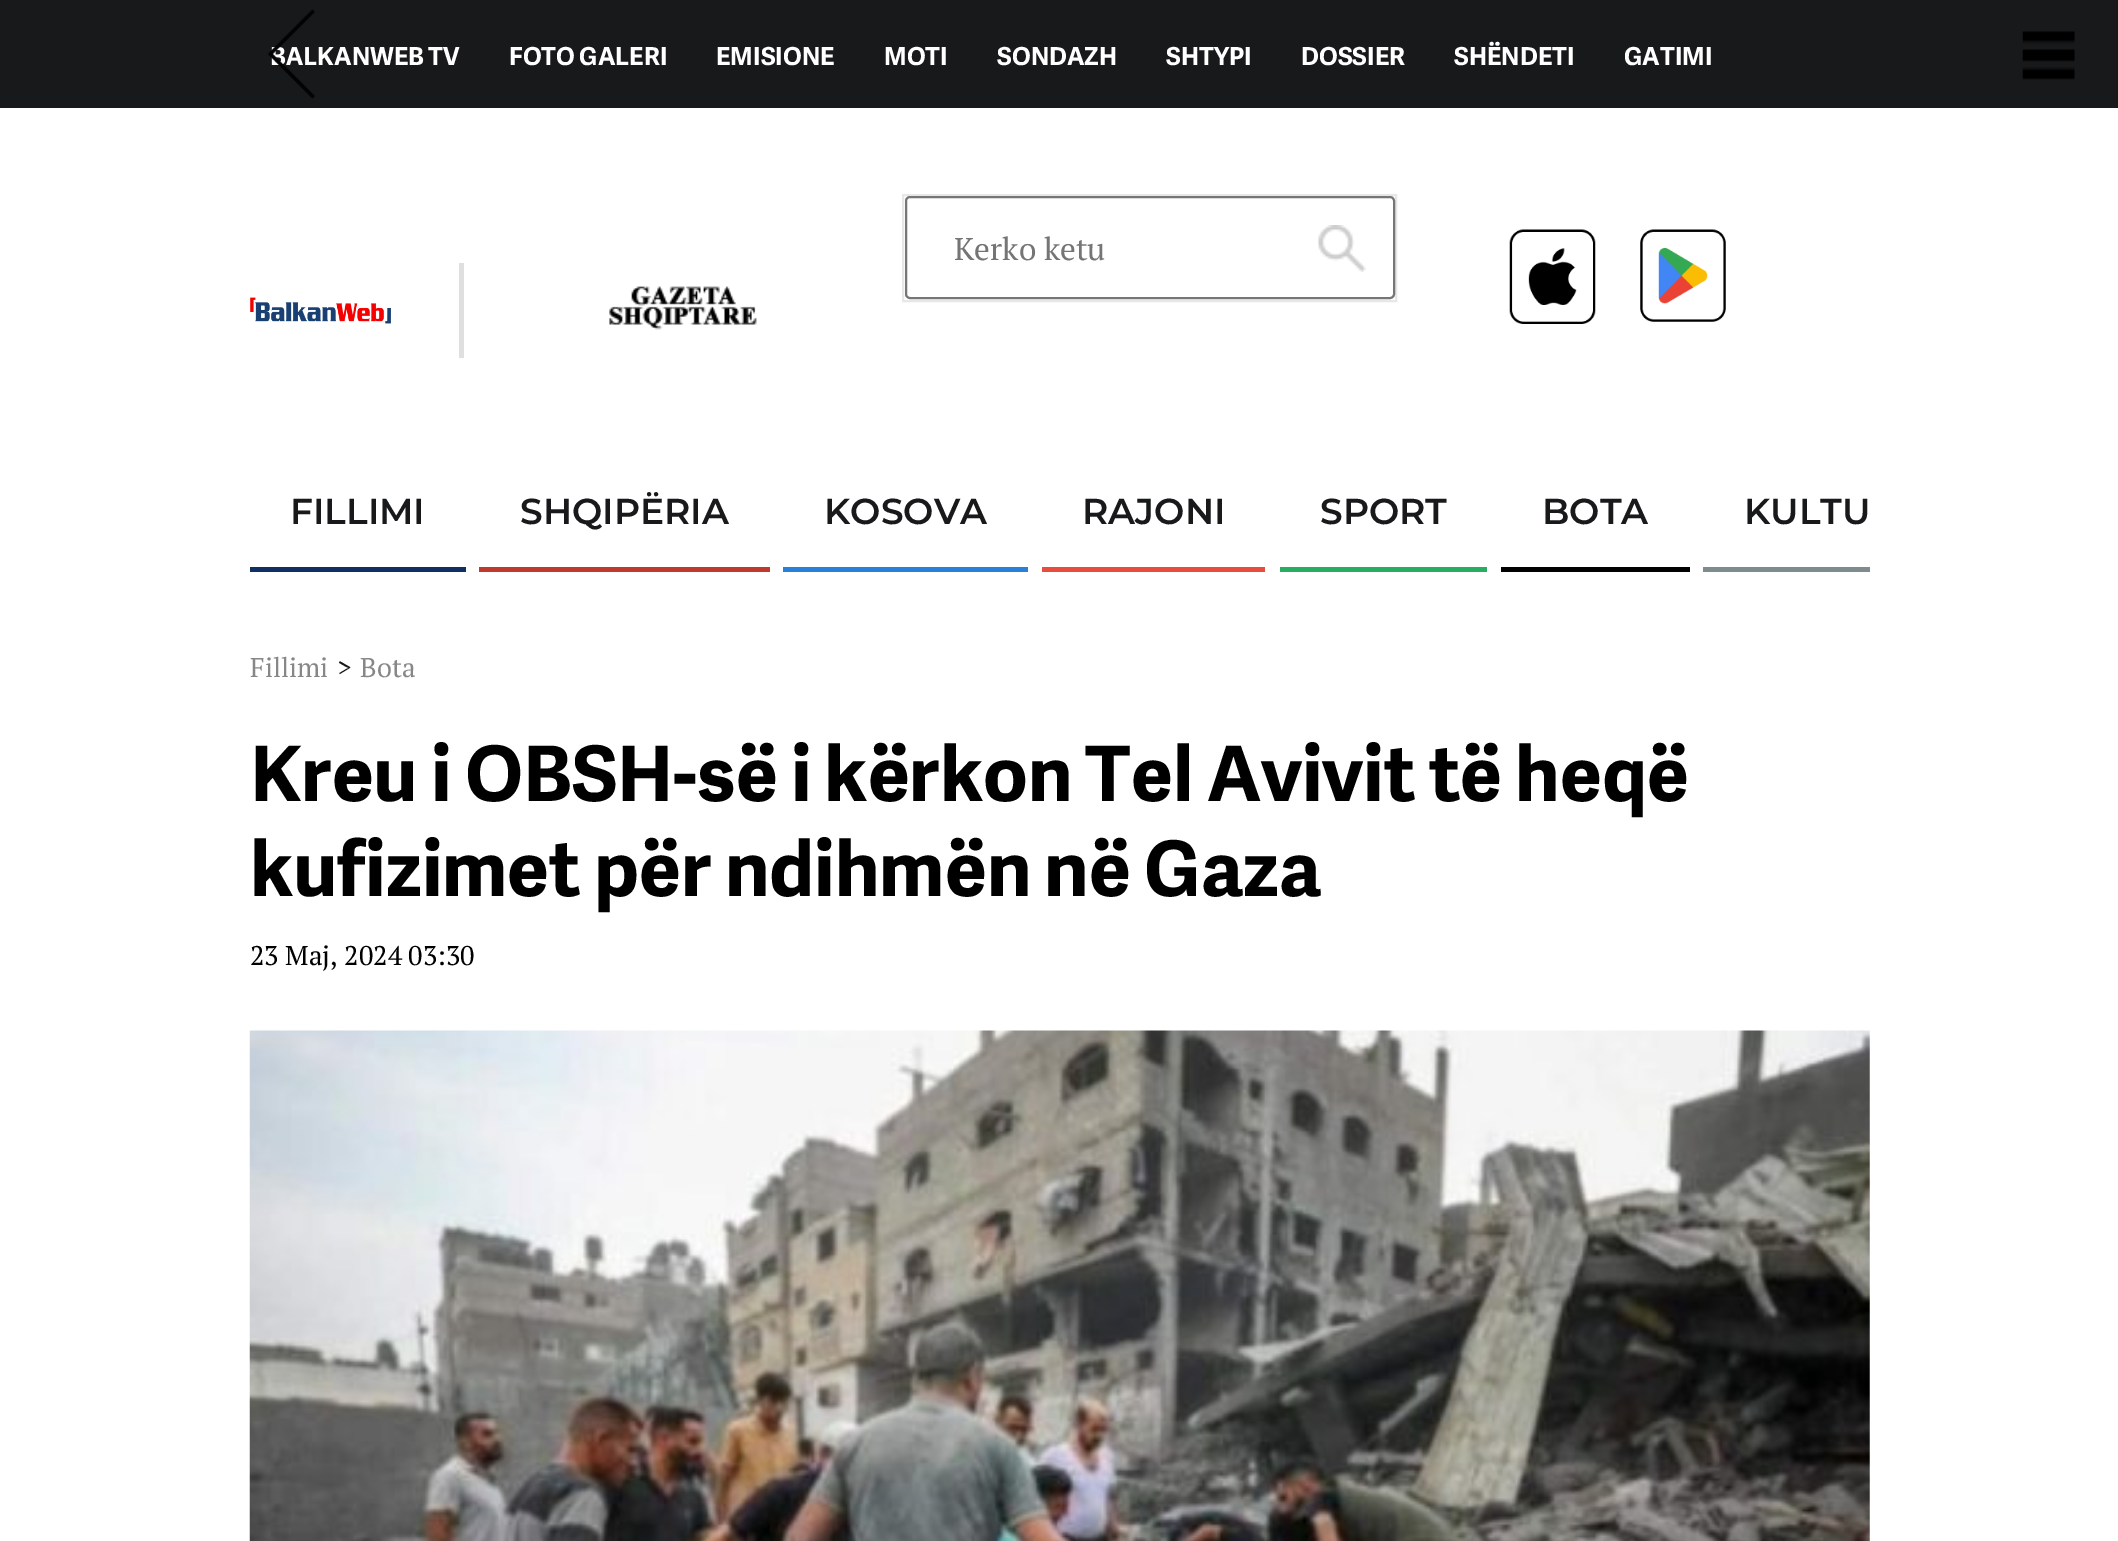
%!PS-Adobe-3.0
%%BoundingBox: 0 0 2118 1541
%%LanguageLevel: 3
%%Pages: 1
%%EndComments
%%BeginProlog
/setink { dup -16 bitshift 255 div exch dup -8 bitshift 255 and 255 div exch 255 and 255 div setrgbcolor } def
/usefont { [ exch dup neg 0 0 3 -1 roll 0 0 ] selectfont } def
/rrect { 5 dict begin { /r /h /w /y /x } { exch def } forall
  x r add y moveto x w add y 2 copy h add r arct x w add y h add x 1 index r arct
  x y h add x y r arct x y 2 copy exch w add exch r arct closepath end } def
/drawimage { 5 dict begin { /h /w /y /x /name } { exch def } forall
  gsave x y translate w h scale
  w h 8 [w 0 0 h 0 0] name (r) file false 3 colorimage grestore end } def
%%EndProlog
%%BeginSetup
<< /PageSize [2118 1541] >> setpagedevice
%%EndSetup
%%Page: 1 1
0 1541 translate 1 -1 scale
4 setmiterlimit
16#FFFFFF setink
0 0 2118 1541 rectfill
16#18191A setink
0 0 2118 108 rectfill
/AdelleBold-Bold 24.75 usefont
16#FFFFFF setink
270 65 moveto (BALKANWEB TV) show
(img1.raw) 268 9 47 90 drawimage
(img2.raw) 2022 31 53 49 drawimage
[
    [(FOTO GALERI) 509 65]
    [(EMISIONE) 716 65]
    [(MOTI) 884 65]
    [(SONDAZH) 997 65]
    [(SHTYPI) 1166 65]
    [(DOSSIER) 1301 65]
    [(SHËNDETI) 1454 65]
    [(GATIMI) 1624 65]
] { aload pop moveto show } forall
16#E7E7E7 setink
2 setlinewidth
903 195 493 106 rectstroke
16#767676 setink
906 197 488 101 4 rrect stroke
/PTSerif-Regular 31.5 usefont
16#757575 setink
954 260 moveto (Kerko ketu) show
(img3.raw) 1318 225 48 47 drawimage
(img4.raw) 1509 229 87 95 drawimage
(img5.raw) 1640 229 86 93 drawimage
16#DFDFDF setink
459 263 5 95 rectfill
(img6.raw) 250 297 141 27 drawimage
(img7.raw) 609 286 148 44 drawimage
16#102F62 setink
250 567 216 5 rectfill
/Montserrat-SemiBold 36 usefont
16#18191A setink
290 524 moveto (FILLIMI) show
16#C0392D setink
479 567 291 5 rectfill
16#18191A setink
520 524 moveto (SHQIPËRIA) show
16#2980D9 setink
783 567 245 5 rectfill
16#18191A setink
824 524 moveto (KOSOVA) show
16#E74C3C setink
1042 567 223 5 rectfill
16#18191A setink
1082 524 moveto (RAJONI) show
16#27AE60 setink
1280 567 207 5 rectfill
16#18191A setink
1320 524 moveto (SPORT) show
16#000000 setink
1501 567 189 5 rectfill
16#18191A setink
1542 524 moveto (BOTA) show
16#7F8C8D setink
1703 567 167 5 rectfill
16#18191A setink
1744 524 moveto (KULTU) show
/PTSerif-Regular 27 usefont
16#878787 setink
250 677 moveto (Fillimi) show
16#18191A setink
337 677 moveto (>) show
16#878787 setink
360 677 moveto (Bota) show
/AdelleBold-Bold 76.5 usefont
16#000000 setink
250 801 moveto (Kreu i OBSH-së i kërkon Tel Avivit të heqë) show
250 896 moveto (kufizimet për ndihmën në Gaza) show
/PTSerif-Regular 27 usefont
250 965 moveto (23 Maj, 2024 03:30) show
(img8.raw) 249 1030 1621 511 drawimage
showpage
%%EOF
